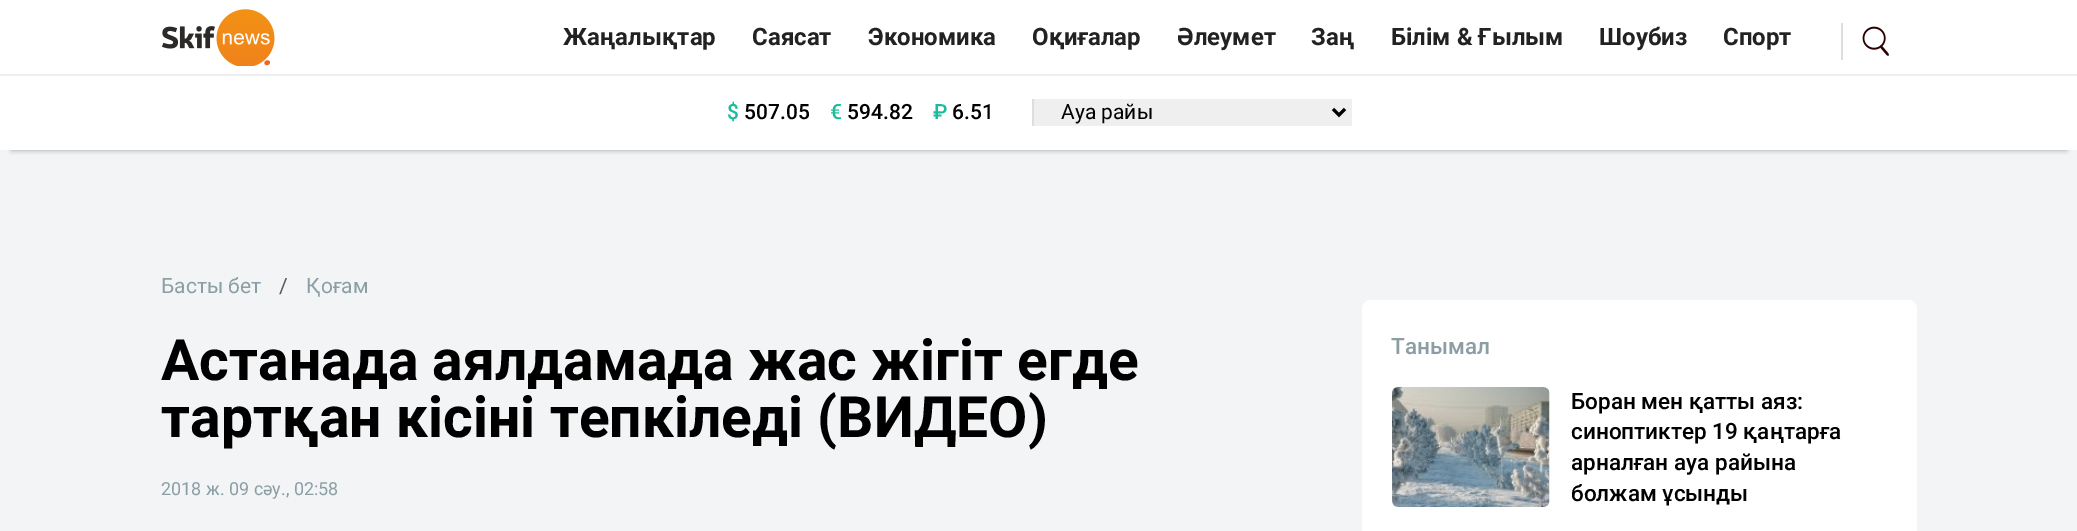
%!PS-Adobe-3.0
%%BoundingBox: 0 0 2077 531
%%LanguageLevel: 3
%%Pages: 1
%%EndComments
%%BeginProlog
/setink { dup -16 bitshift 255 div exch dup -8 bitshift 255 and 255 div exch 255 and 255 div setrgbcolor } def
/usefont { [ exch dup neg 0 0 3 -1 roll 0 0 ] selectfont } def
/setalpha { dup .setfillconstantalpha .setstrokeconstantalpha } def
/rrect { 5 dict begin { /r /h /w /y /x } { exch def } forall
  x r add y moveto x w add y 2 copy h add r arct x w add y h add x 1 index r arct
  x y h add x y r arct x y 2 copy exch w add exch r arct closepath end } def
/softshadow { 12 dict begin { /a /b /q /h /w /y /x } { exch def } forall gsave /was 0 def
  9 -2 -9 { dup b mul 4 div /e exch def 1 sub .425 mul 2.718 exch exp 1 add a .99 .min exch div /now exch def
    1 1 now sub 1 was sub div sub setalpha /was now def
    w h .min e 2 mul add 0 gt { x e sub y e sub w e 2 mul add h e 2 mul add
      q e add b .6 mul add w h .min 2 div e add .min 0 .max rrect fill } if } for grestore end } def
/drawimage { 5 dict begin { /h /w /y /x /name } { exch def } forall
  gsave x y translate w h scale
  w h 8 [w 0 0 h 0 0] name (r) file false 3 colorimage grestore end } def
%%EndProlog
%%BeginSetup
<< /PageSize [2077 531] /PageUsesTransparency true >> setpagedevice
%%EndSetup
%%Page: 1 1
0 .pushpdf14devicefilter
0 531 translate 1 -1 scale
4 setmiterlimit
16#F2F4F5 setink
0 0 2077 531 rectfill
16#FFFFFF setink
0 0 2077 150 rectfill
16#EEEEEE setink
0 74 2077 2 rectfill
(img1.raw) 162 9 113 57 drawimage
/Roboto-Bold 24 usefont
16#222222 setink
[
    [(Жаңалықтар) 563 45]
    [(Саясат) 752 45]
    [(Экономика) 868 45]
    [(Оқиғалар) 1032 45]
    [(Әлеумет) 1177 45]
    [(Заң) 1311 45]
    [(Білім & Ғылым) 1391 45]
    [(Шоубиз) 1599 45]
    [(Спорт) 1723 45]
] { aload pop moveto show } forall
16#DDDDDD setink
1841 23 2 37 rectfill
(img2.raw) 1862 26 27 30 drawimage
gsave
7 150 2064 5 rectclip
16#777777 setink
12 98 2054 51 0 3 1 softshadow
grestore
/Roboto-Medium 21 usefont
16#1ABC9C setink
727 119 moveto ($) show
16#000000 setink
744 119 moveto (507.05) show
16#1ABC9C setink
830 119 moveto (€) show
16#000000 setink
847 119 moveto (594.82) show
16#1ABC9C setink
933 119 moveto (₽) show
16#000000 setink
952 119 moveto (6.51) show
16#EFEFEF setink
1034 99 318 27 rectfill
16#DDDDDD setink
1032 99 2 27 rectfill
16#000000 setink
3 setlinewidth
1333 109 moveto 1339 115 lineto 1345 109 lineto stroke
/Roboto-Regular 21 usefont
1061 119 moveto (Ауа райы) show
16#8B9EA5 setink
161 293 moveto (Басты бет) show
16#55595C setink
279 293 moveto (/) show
16#8B9EA5 setink
306 293 moveto (Қоғам) show
/Roboto-Bold 57 usefont
16#000000 setink
161 380 moveto (Астанада аялдамада жас жігіт егде) show
161 437 moveto (тартқан кісіні тепкіледі \(ВИДЕО\)) show
/Roboto-Regular 18 usefont
16#8B9EA5 setink
161 495 moveto (2018 ж. 09 сәу., 02:58) show
16#FFFFFF setink
1362 300 555 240 9 rrect fill
/Roboto-Medium 22.5 usefont
16#8B9EA5 setink
1391 354 moveto (Танымал) show
(img3.raw) 1392 387 158 120 drawimage
16#000000 setink
[
    [(Боран мен қатты аяз:) 1571 409]
    [(синоптиктер 19 қаңтарға) 1571 439]
    [(арналған ауа райына) 1571 470]
    [(болжам ұсынды) 1571 501]
] { aload pop moveto show } forall
.poppdf14devicefilter showpage
%%EOF
